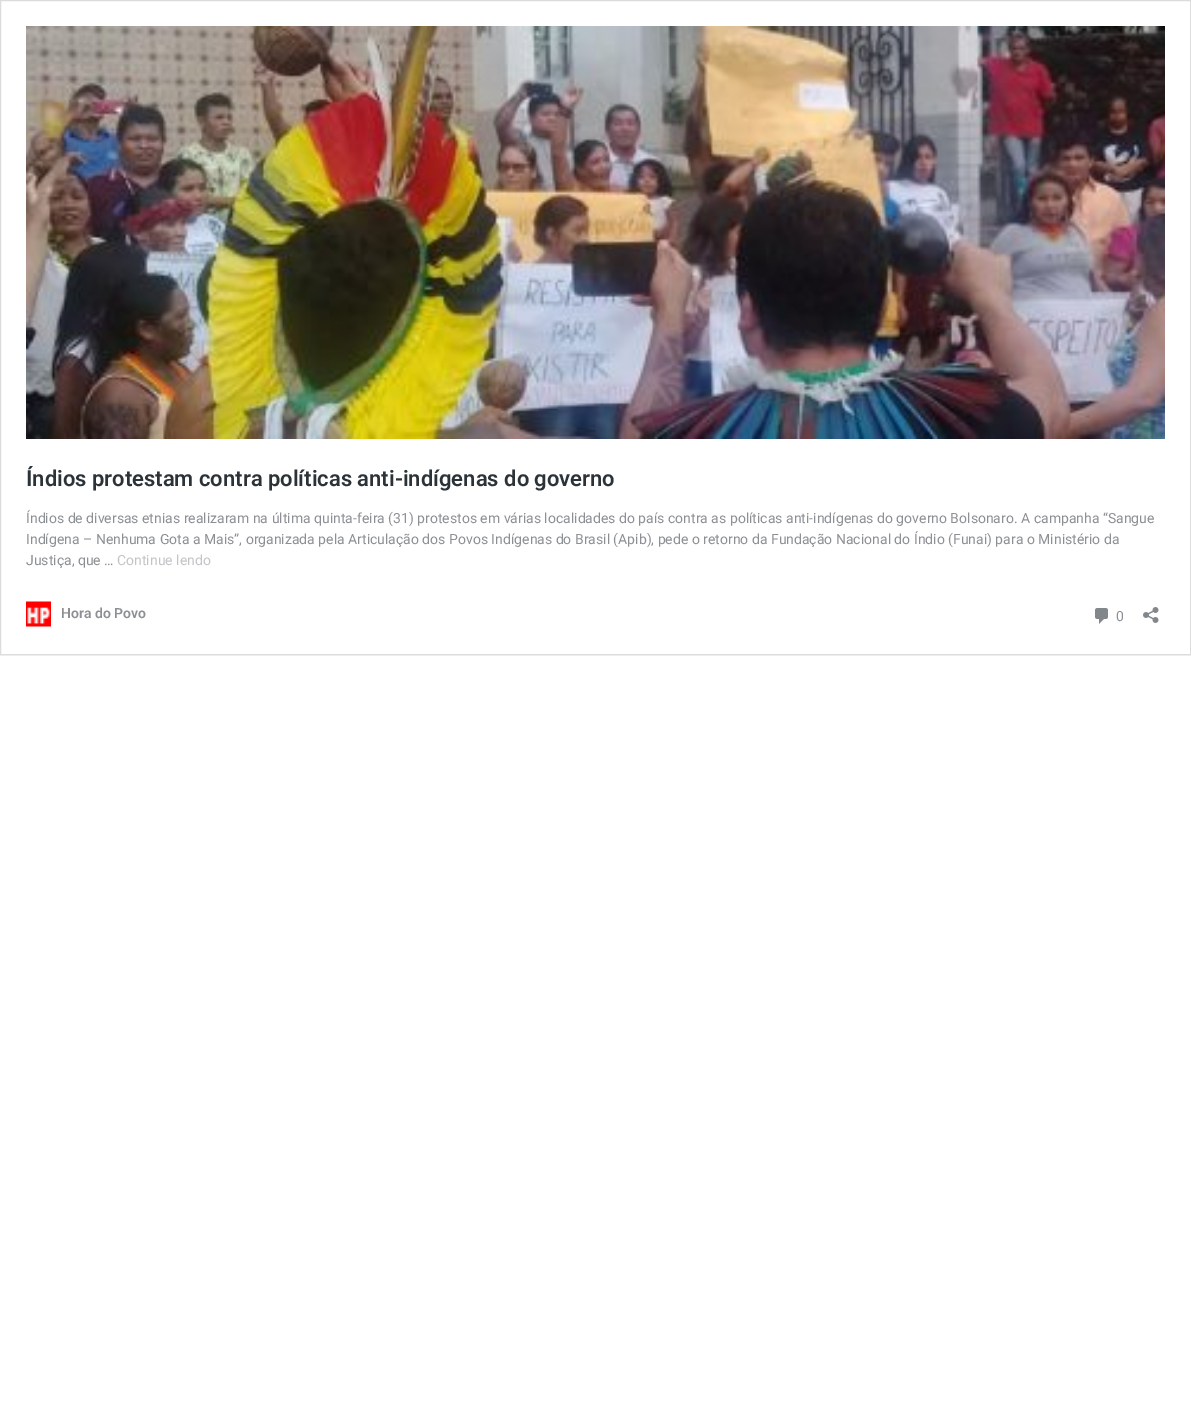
%!PS-Adobe-3.0
%%BoundingBox: 0 0 1191 1427
%%LanguageLevel: 3
%%Pages: 1
%%EndComments
%%BeginProlog
/setink { dup -16 bitshift 255 div exch dup -8 bitshift 255 and 255 div exch 255 and 255 div setrgbcolor } def
/usefont { [ exch dup neg 0 0 3 -1 roll 0 0 ] selectfont } def
/setalpha { dup .setfillconstantalpha .setstrokeconstantalpha } def
/rrect { 5 dict begin { /r /h /w /y /x } { exch def } forall
  x r add y moveto x w add y 2 copy h add r arct x w add y h add x 1 index r arct
  x y h add x y r arct x y 2 copy exch w add exch r arct closepath end } def
/softshadow { 12 dict begin { /a /b /q /h /w /y /x } { exch def } forall gsave /was 0 def
  9 -2 -9 { dup b mul 4 div /e exch def 1 sub .425 mul 2.718 exch exp 1 add a .99 .min exch div /now exch def
    1 1 now sub 1 was sub div sub setalpha /was now def
    w h .min e 2 mul add 0 gt { x e sub y e sub w e 2 mul add h e 2 mul add
      q e add b .6 mul add w h .min 2 div e add .min 0 .max rrect fill } if } for grestore end } def
/drawimage { 5 dict begin { /h /w /y /x /name } { exch def } forall
  gsave x y translate w h scale
  w h 8 [w 0 0 h 0 0] name (r) file false 3 colorimage grestore end } def
%%EndProlog
%%BeginSetup
<< /PageSize [1191 1427] /PageUsesTransparency true >> setpagedevice
%%EndSetup
%%Page: 1 1
0 .pushpdf14devicefilter
0 1427 translate 1 -1 scale
4 setmiterlimit
16#FFFFFF setink
0 0 1191 1427 rectfill
gsave
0 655 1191 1 rectclip
16#000000 setink
0 1 1191 655 0 0.5 0.05 softshadow
grestore
16#DCDCDE setink
0.5 0.5 1190 654 rectstroke
(img1.raw) 26 26 1139 413 drawimage
/Roboto-SemiBold 22 usefont
16#2C3338 setink
26 486 moveto (Índios protestam contra políticas anti-indígenas do governo) show
/Roboto-Regular 14 usefont
16#8C8F94 setink
[
    [(Índios de diversas etnias realizaram na última quinta-feira \(31\) protestos em várias localidades do país contra as políticas anti-indígenas do governo Bolsonaro. A campanha “Sangue) 26 523]
    [(Indígena – Nenhuma Gota a Mais”, organizada pela Articulação dos Povos Indígenas do Brasil \(Apib\), pede o retorno da Fundação Nacional do Índio \(Funai\) para o Ministério da) 26 544]
    [(Justiça, que …) 26 565]
] { aload pop moveto show } forall
16#C3C4C7 setink
117 565 moveto (Continue lendo) show
(img2.raw) 26 601 25 26 drawimage
/Roboto-SemiBold 14 usefont
16#8C8F94 setink
61 618 moveto (Hora do Povo) show
(img3.raw) 1095 608 13 16 drawimage
/Roboto-Regular 14 usefont
1116 621 moveto (0) show
(img4.raw) 1143 607 16 16 drawimage
.poppdf14devicefilter showpage
%%EOF
